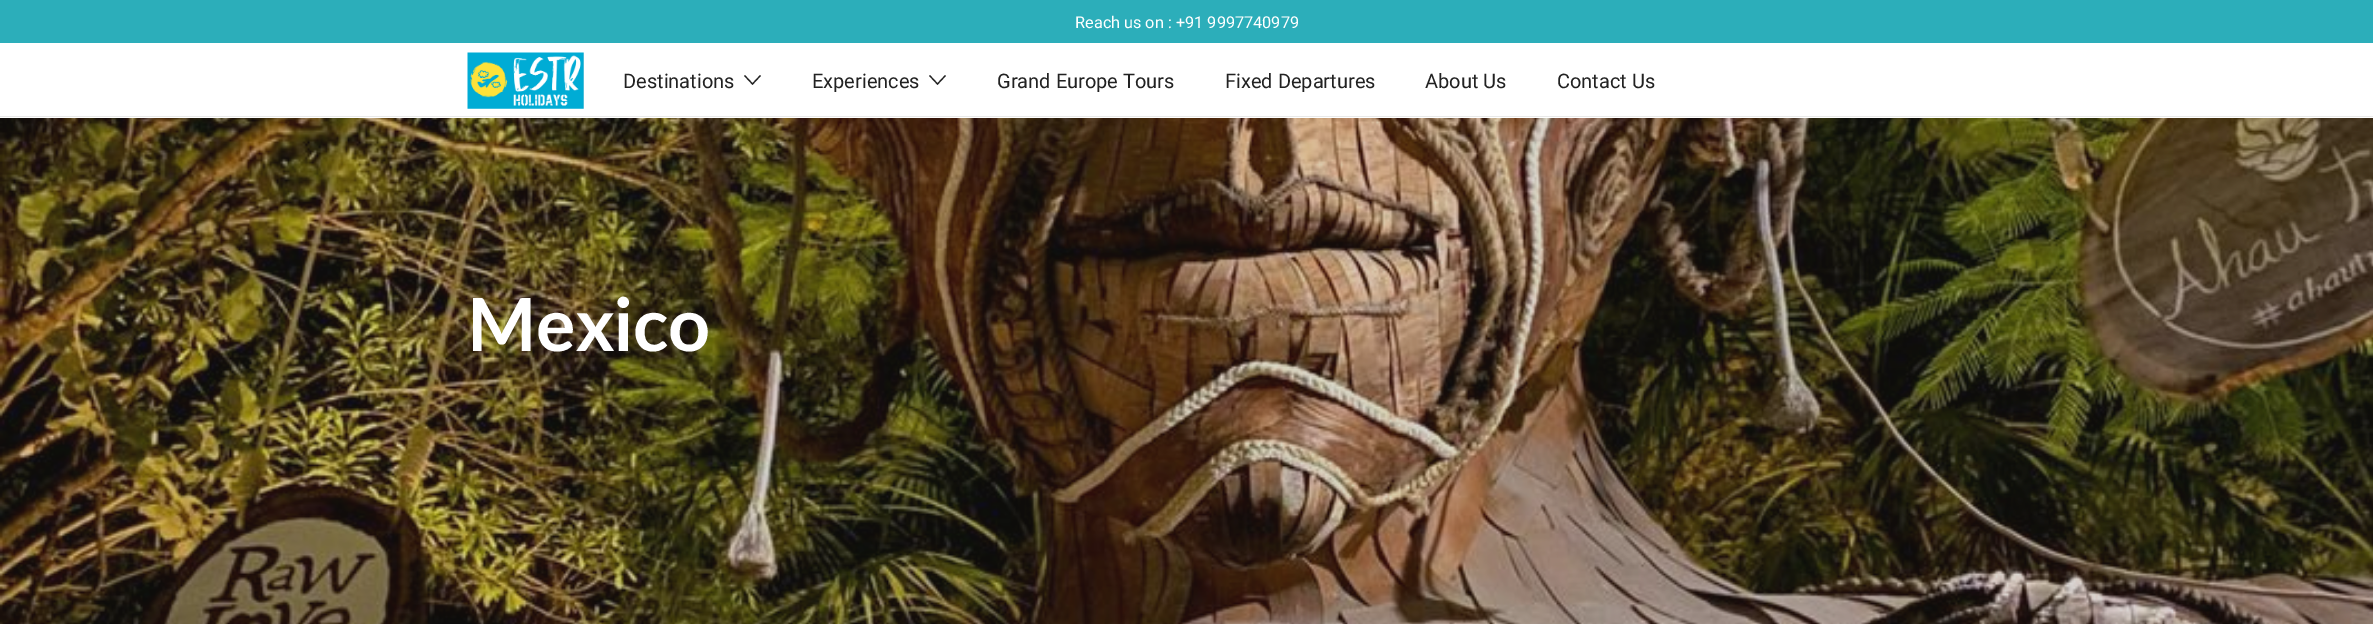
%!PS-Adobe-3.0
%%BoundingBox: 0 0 2373 624
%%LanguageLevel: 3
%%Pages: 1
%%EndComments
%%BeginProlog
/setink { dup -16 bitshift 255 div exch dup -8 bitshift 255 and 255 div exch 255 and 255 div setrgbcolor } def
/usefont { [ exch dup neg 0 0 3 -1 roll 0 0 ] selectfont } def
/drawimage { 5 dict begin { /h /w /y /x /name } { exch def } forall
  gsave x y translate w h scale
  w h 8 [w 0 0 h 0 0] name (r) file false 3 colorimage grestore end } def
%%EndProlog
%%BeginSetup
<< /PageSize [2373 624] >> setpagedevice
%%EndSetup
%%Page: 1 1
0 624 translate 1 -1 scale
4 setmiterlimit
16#2CAEBA setink
0 0 2373 624 rectfill
/Roboto-Regular 16.3 usefont
16#FFFFFF setink
1075 28 moveto (Reach us on : +91 9997740979) show
0 43 2373 75 rectfill
16#E9E9E8 setink
0 116 2373 1 rectfill
(img1.raw) 467 52 117 57 drawimage
/Roboto-Regular 20 usefont
16#222222 setink
623 88 moveto (Destinations) show
1.2 setlinewidth
2 setlinecap
745 76 moveto 752.5 84 lineto 760 76 moveto 752.5 84 lineto stroke
812 88 moveto (Experiences) show
930 76 moveto 937.5 84 lineto 945 76 moveto 937.5 84 lineto stroke
[
    [(Grand Europe Tours) 997 88]
    [(Fixed Departures) 1225 88]
    [(About Us) 1425 88]
    [(Contact Us) 1557 88]
] { aload pop moveto show } forall
(img2.raw) 0 118 2373 506 drawimage
/Lato-Bold 73.5 usefont
16#FFFFFF setink
467 351 moveto (Mexico) show
showpage
%%EOF
